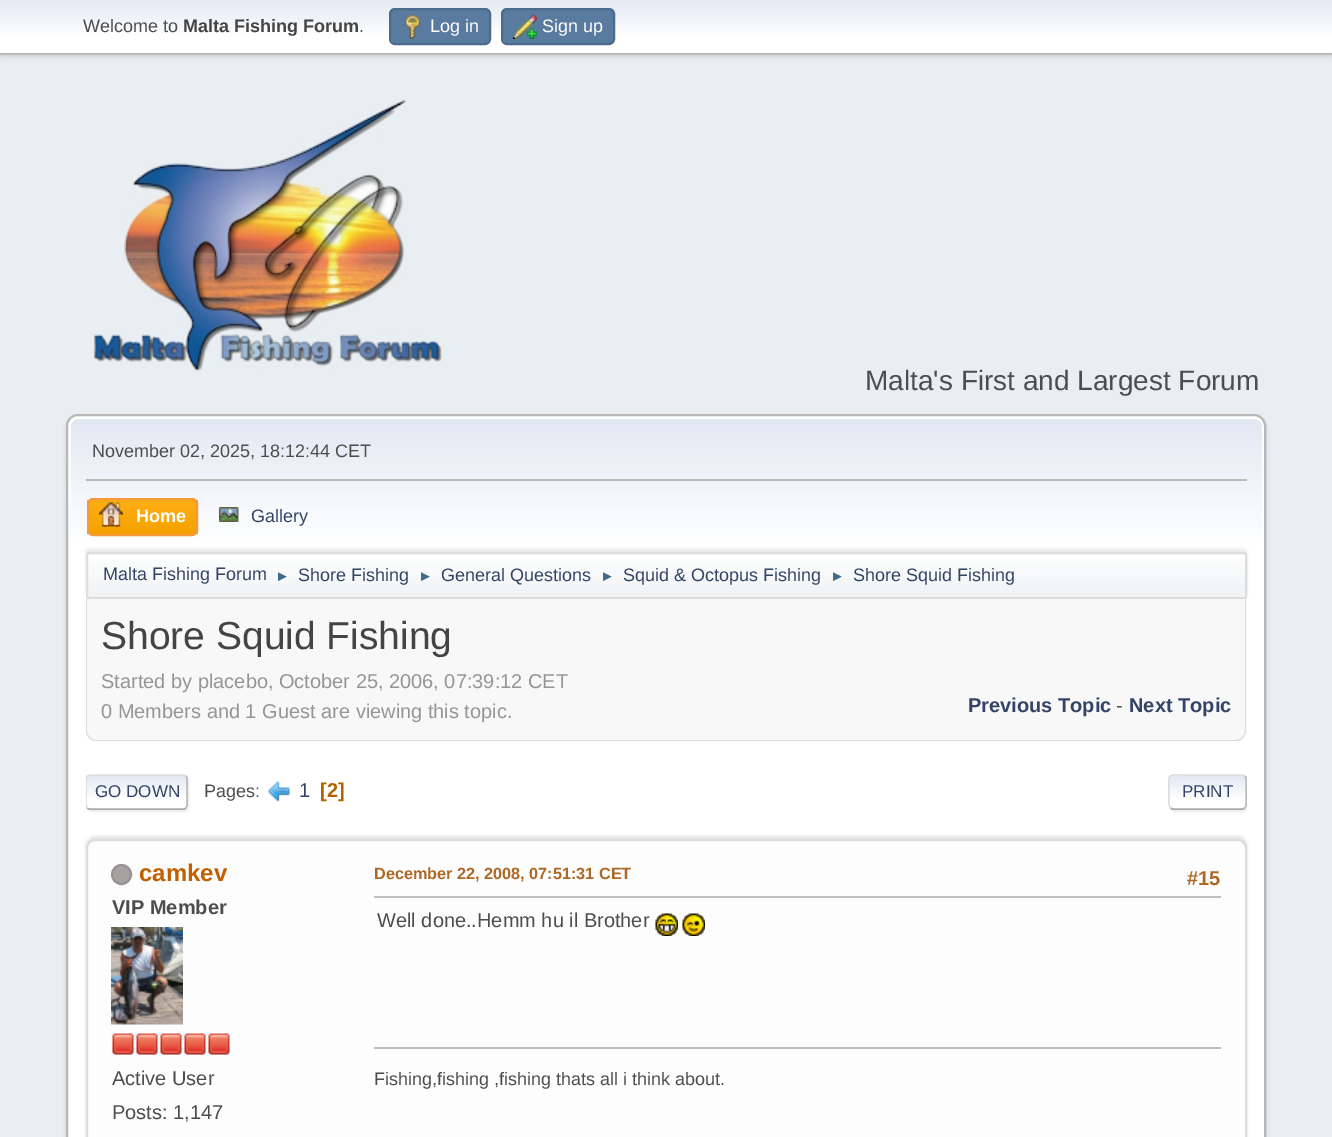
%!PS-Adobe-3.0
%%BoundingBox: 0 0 1332 1137
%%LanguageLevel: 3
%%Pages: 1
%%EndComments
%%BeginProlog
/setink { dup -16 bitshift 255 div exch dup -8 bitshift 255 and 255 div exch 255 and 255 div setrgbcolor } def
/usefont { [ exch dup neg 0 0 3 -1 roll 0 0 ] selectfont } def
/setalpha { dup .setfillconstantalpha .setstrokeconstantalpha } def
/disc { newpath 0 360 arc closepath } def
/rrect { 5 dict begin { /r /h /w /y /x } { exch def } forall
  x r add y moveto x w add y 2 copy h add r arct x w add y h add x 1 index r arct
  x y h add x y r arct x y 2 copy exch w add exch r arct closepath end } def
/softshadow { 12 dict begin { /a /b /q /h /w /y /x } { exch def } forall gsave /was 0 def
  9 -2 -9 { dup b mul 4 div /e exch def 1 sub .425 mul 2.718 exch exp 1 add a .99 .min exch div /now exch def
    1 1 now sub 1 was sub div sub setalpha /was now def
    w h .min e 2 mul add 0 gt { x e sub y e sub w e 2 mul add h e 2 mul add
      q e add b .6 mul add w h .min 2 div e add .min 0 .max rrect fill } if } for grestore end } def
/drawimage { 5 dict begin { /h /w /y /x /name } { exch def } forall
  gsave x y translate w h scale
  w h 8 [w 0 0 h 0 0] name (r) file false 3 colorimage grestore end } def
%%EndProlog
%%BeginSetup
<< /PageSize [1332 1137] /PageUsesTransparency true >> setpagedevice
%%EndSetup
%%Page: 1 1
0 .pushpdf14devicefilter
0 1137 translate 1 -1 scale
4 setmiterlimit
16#E9EEF2 setink
0 0 1332 1137 rectfill
16#000000 setink
0 2 1332 54 0 3 0.16 softshadow
gsave 0 0 moveto 1332 0 lineto 1332 53 lineto 0 53 lineto closepath clip newpath
<< /ShadingType 2 /ColorSpace /DeviceRGB /Coords [666 0 666 53] /Extend [true true] /Function << /FunctionType 3 /Domain [0 1] /Functions [<< /FunctionType 2 /Domain [0 1] /C0 [0.886 0.914 0.953] /C1 [1 1 1] /N 1 >> << /FunctionType 2 /Domain [0 1] /C0 [1 1 1] /C1 [1 1 1] /N 1 >>] /Bounds [0.7] /Encode [0 1 0 1] >> >> shfill grestore
16#BBBBBB setink
0 53 1332 2 rectfill
/LiberationSans-Regular 18 usefont
16#4D4D4D setink
83 32 moveto (Welcome to) show
/LiberationSans-Bold 18 usefont
16#444444 setink
183 32 moveto (Malta Fishing Forum) show
/LiberationSans-Regular 18 usefont
16#4D4D4D setink
359 32 moveto (.) show
16#597B9F setink
390 9 100 35 5 rrect gsave fill grestore
16#4A6B8C setink
2 setlinewidth
stroke
(img1.raw) 404 15 17 24 drawimage
16#FFFFFF setink
430 32 moveto (Log in) show
16#597B9F setink
502 9 112 35 5 rrect gsave fill grestore
16#4A6B8C setink
stroke
(img2.raw) 513 15 24 24 drawimage
16#FFFFFF setink
542 32 moveto (Sign up) show
(img3.raw) 93 100 349 271 drawimage
/LiberationSans-Regular 28 usefont
16#4D4D4D setink
865 390 moveto (Malta's First and Largest Forum) show
16#000000 setink
66 417 1200 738 12 2 0.14 softshadow
16#FFFFFF setink
67 415 1198 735 11 rrect gsave fill grestore
16#B8B8B8 setink
stroke
gsave 80 419 moveto 1253 419 lineto 1258 419 1262 423 1262 428 curveto 1262 602 lineto 71 602 lineto 71 428 lineto 71 423 75 419 80 419 curveto closepath clip newpath
<< /ShadingType 2 /ColorSpace /DeviceRGB /Coords [666 418 666 602] /Extend [true true] /Function << /FunctionType 3 /Domain [0 1] /Functions [<< /FunctionType 2 /Domain [0 1] /C0 [0.886 0.914 0.953] /C1 [1 1 1] /N 1 >> << /FunctionType 2 /Domain [0 1] /C0 [1 1 1] /C1 [1 1 1] /N 1 >>] /Bounds [0.7] /Encode [0 1 0 1] >> >> shfill grestore
16#BBBBBB setink
86 479 1161 2 rectfill
/LiberationSans-Regular 18 usefont
16#4D4D4D setink
92 457 moveto (November 02, 2025, 18:12:44 CET) show
gsave
87 498 111 38 6 rrect clip newpath
gsave 87 500 moveto 198 500 lineto 198 534 lineto 87 534 lineto closepath clip newpath
<< /ShadingType 2 /ColorSpace /DeviceRGB /Coords [143 500 143 534] /Extend [true true] /Function << /FunctionType 2 /Domain [0 1] /C0 [1 0.682 0.078] /C1 [0.961 0.631 0] /N 1 >> >> shfill grestore
grestore
16#F49A3A setink
88 499 109 36 5 rrect stroke
(img4.raw) 99 502 24 25 drawimage
/LiberationSans-Bold 18 usefont
16#FFFFFF setink
136 522 moveto (Home) show
(img5.raw) 219 507 20 15 drawimage
/LiberationSans-Regular 18 usefont
16#334466 setink
251 522 moveto (Gallery) show
16#000000 setink
86 549 1161 47 3 1.5 0.08 softshadow
gsave
86 552 1161 47 3 rrect clip newpath
gsave 86 554 moveto 1247 554 lineto 1247 597 lineto 86 597 lineto closepath clip newpath
<< /ShadingType 2 /ColorSpace /DeviceRGB /Coords [666 553 666 597] /Extend [true true] /Function << /FunctionType 3 /Domain [0 1] /Functions [<< /FunctionType 2 /Domain [0 1] /C0 [1 1 1] /C1 [0.945 0.953 0.961] /N 1 >> << /FunctionType 2 /Domain [0 1] /C0 [0.945 0.953 0.961] /C1 [0.945 0.953 0.961] /N 1 >>] /Bounds [0.95] /Encode [0 1 0 1] >> >> shfill grestore
grestore
16#DDDDDD setink
87 553 1159 45 2 rrect stroke
16#334466 setink
103 580 moveto (Malta Fishing Forum) show
/LiberationSans-Regular 15 usefont
16#3F6B8C setink
275 581 moveto (►) show
/LiberationSans-Regular 18 usefont
16#334466 setink
298 581 moveto (Shore Fishing) show
/LiberationSans-Regular 15 usefont
16#3F6B8C setink
418 581 moveto (►) show
/LiberationSans-Regular 18 usefont
16#334466 setink
441 581 moveto (General Questions) show
/LiberationSans-Regular 15 usefont
16#3F6B8C setink
600 581 moveto (►) show
/LiberationSans-Regular 18 usefont
16#334466 setink
623 581 moveto (Squid & Octopus Fishing) show
/LiberationSans-Regular 15 usefont
16#3F6B8C setink
830 581 moveto (►) show
/LiberationSans-Regular 18 usefont
16#334466 setink
853 581 moveto (Shore Squid Fishing) show
16#F8F8F8 setink
86 599 moveto 1247 599 lineto 1247 730 lineto 1247 736 1242 741 1236 741 curveto 97 741 lineto 91 741 86 736 86 730 curveto closepath fill
16#DDDDDD setink
86 598 moveto 1246 598 lineto 1246 730 lineto 1246 736 1242 741 1236 741 curveto 96 741 lineto 90 741 86 736 86 730 curveto closepath 87 598 moveto 1245 598 lineto 1245 730 lineto 1245 735 1241 740 1236 740 curveto 96 740 lineto 91 740 87 735 87 730 curveto closepath eofill
/LiberationSans-Regular 39 usefont
16#444444 setink
101 649 moveto (Shore Squid Fishing) show
/LiberationSans-Regular 20 usefont
16#959595 setink
101 688 moveto (Started by placebo, October 25, 2006, 07:39:12 CET) show
101 718 moveto (0 Members and 1 Guest are viewing this topic.) show
/LiberationSans-Bold 20 usefont
16#334466 setink
968 712 moveto (Previous Topic) show
/LiberationSans-Regular 20 usefont
16#4D4D4D setink
1116 712 moveto (-) show
/LiberationSans-Bold 20 usefont
16#334466 setink
1129 712 moveto (Next Topic) show
16#DDDDDD setink
87 776 102 36 5 1 0.57 softshadow
16#FFFFFF setink
86 774 102 36 5 rrect fill
gsave
86 774 102 36 5 rrect clip newpath
gsave 86 776 moveto 188 776 lineto 188 809 lineto 86 809 lineto closepath clip newpath
<< /ShadingType 2 /ColorSpace /DeviceRGB /Coords [137 776 137 809] /Extend [true true] /Function << /FunctionType 3 /Domain [0 1] /Functions [<< /FunctionType 2 /Domain [0 1] /C0 [0.886 0.914 0.953] /C1 [1 1 1] /N 1 >> << /FunctionType 2 /Domain [0 1] /C0 [1 1 1] /C1 [1 1 1] /N 1 >>] /Bounds [0.7] /Encode [0 1 0 1] >> >> shfill grestore
gsave 86 809 moveto 188 809 lineto 188 810 lineto 86 810 lineto closepath clip newpath
<< /ShadingType 2 /ColorSpace /DeviceRGB /Coords [137 809 137 842] /Extend [true true] /Function << /FunctionType 3 /Domain [0 1] /Functions [<< /FunctionType 2 /Domain [0 1] /C0 [0.886 0.914 0.953] /C1 [1 1 1] /N 1 >> << /FunctionType 2 /Domain [0 1] /C0 [1 1 1] /C1 [1 1 1] /N 1 >>] /Bounds [0.7] /Encode [0 1 0 1] >> >> shfill grestore
grestore
16#BBBBBB setink
1.5 setlinewidth
185.5 776 moveto 186.5 776.5 187 777.5 187 778.5 curveto 187 805.5 lineto 187 806.5 186.5 807.5 185.5 808 curveto stroke
16#AAAAAA setink
185.5 808 moveto 185 809 184 809 183 809 curveto 90 809 lineto 89 809 88 809 87.5 808 curveto stroke
gsave
86 764 1161 57 rectclip
16#DDDDDD setink
87.5 808 moveto 85 805.5 86 799.5 86 796.5 curveto 86 783 lineto 86 780 85.5 775 90 775 curveto 183 775 lineto 185.5 776 lineto stroke
grestore
/LiberationSans-Regular 17 usefont
16#334466 setink
95 797 moveto (GO DOWN) show
/LiberationSans-Regular 18 usefont
16#4D4D4D setink
204 797 moveto (Pages:) show
(img6.raw) 268 781 22 21 drawimage
/LiberationSans-Regular 20 usefont
16#334466 setink
299 797 moveto (1) show
/LiberationSans-Bold 20 usefont
16#B46100 setink
320 797 moveto ([2]) show
gsave
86 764 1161 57 rectclip
16#DDDDDD setink
1170 776 78 36 5 1 0.57 softshadow
grestore
16#FFFFFF setink
1169 774 78 36 5 rrect fill
gsave
1169 774 78 36 5 rrect clip newpath
gsave 1169 776 moveto 1247 776 lineto 1247 809 lineto 1169 809 lineto closepath clip newpath
<< /ShadingType 2 /ColorSpace /DeviceRGB /Coords [1208 776 1208 809] /Extend [true true] /Function << /FunctionType 3 /Domain [0 1] /Functions [<< /FunctionType 2 /Domain [0 1] /C0 [0.886 0.914 0.953] /C1 [1 1 1] /N 1 >> << /FunctionType 2 /Domain [0 1] /C0 [1 1 1] /C1 [1 1 1] /N 1 >>] /Bounds [0.7] /Encode [0 1 0 1] >> >> shfill grestore
gsave 1169 809 moveto 1247 809 lineto 1247 810 lineto 1169 810 lineto closepath clip newpath
<< /ShadingType 2 /ColorSpace /DeviceRGB /Coords [1208 809 1208 842] /Extend [true true] /Function << /FunctionType 3 /Domain [0 1] /Functions [<< /FunctionType 2 /Domain [0 1] /C0 [0.886 0.914 0.953] /C1 [1 1 1] /N 1 >> << /FunctionType 2 /Domain [0 1] /C0 [1 1 1] /C1 [1 1 1] /N 1 >>] /Bounds [0.7] /Encode [0 1 0 1] >> >> shfill grestore
grestore
16#BBBBBB setink
1244.5 776 moveto 1245.5 776.5 1246 777.5 1246 778.5 curveto 1246 805.5 lineto 1246 806.5 1245.5 807.5 1244.5 808 curveto stroke
16#AAAAAA setink
1244.5 808 moveto 1242.5 809 lineto 1172.5 809 lineto 1170.5 808 lineto stroke
16#DDDDDD setink
1170.5 808 moveto 1168 806 1169 795 1169 792 curveto 1169 773 1166 775 1184.5 775 curveto 1242 775 lineto 1244.5 776 lineto stroke
/LiberationSans-Regular 17 usefont
16#334466 setink
1182 797 moveto (PRINT) show
16#000000 setink
86 836 1161 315 9 1.5 0.1 softshadow
16#FDFDFD setink
87 840 1159 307 8 rrect gsave fill grestore
16#DDDDDD setink
2 setlinewidth
stroke
16#A7A2A2 setink
121.5 874.5 9.5 disc gsave fill grestore
16#969292 setink
stroke
/LiberationSans-Bold 24 usefont
16#C06002 setink
139 881 moveto (camkev) show
/LiberationSans-Bold 20 usefont
16#4D4D4D setink
112 914 moveto (VIP Member) show
(img7.raw) 111 927 72 98 drawimage
(img8.raw) 112 1033 22 22 drawimage
(img8.raw) 136 1033 22 22 drawimage
(img8.raw) 160 1033 22 22 drawimage
(img8.raw) 184 1033 22 22 drawimage
(img8.raw) 208 1033 22 22 drawimage
/LiberationSans-Regular 20 usefont
112 1085 moveto (Active User) show
112 1119 moveto (Posts: 1,147) show
/LiberationSans-Bold 16.25 usefont
16#AD6825 setink
374 879 moveto (December 22, 2008, 07:51:31 CET) show
/LiberationSans-Bold 20 usefont
1187 885 moveto (#15) show
16#BFBFBF setink
374 896 847 2 rectfill
/LiberationSans-Regular 20 usefont
16#4D4D4D setink
377 927 moveto (Well done..Hemm hu il Brother) show
(img9.raw) 655 913 23 23 drawimage
(img10.raw) 682 913 23 23 drawimage
16#BFBFBF setink
374 1047 847 2 rectfill
/LiberationSans-Regular 18 usefont
16#4D4D4D setink
374 1085 moveto (Fishing,fishing ,fishing thats all i think about.) show
.poppdf14devicefilter showpage
%%EOF
